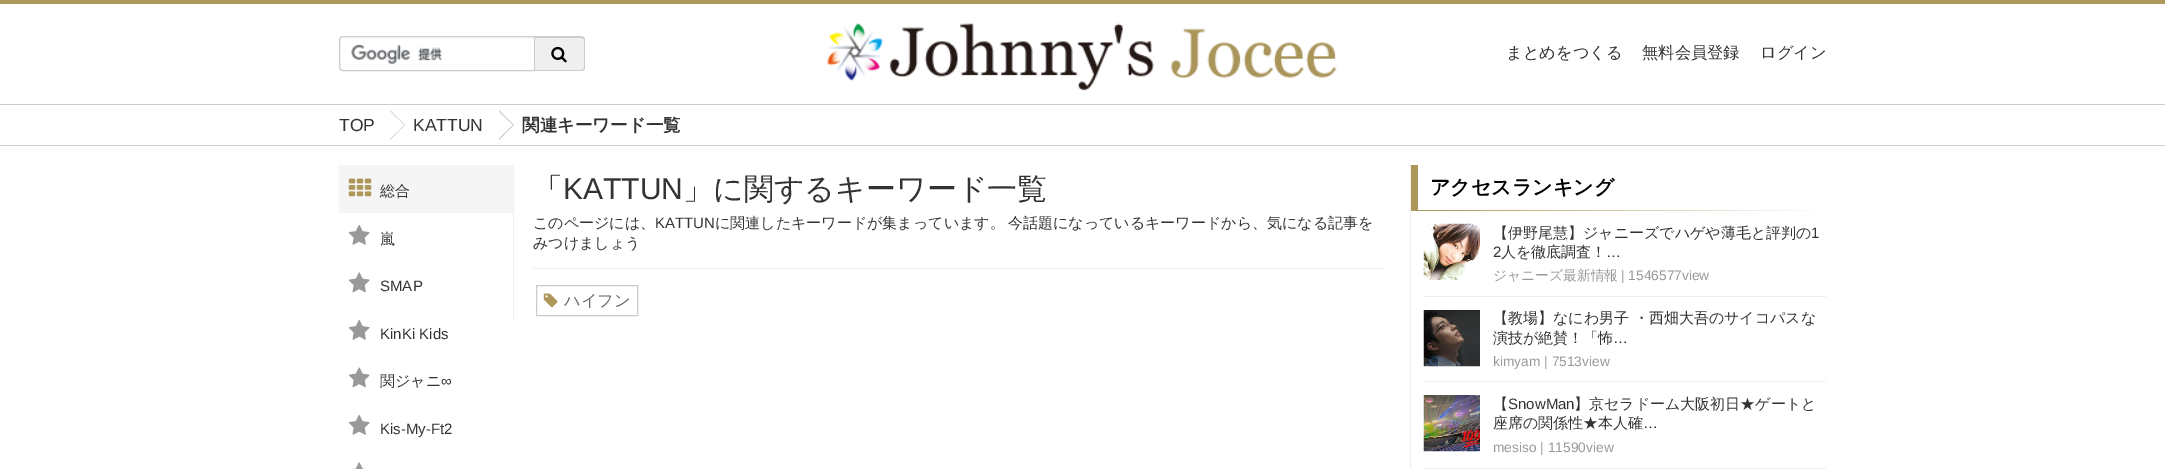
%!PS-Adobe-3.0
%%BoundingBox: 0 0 2165 469
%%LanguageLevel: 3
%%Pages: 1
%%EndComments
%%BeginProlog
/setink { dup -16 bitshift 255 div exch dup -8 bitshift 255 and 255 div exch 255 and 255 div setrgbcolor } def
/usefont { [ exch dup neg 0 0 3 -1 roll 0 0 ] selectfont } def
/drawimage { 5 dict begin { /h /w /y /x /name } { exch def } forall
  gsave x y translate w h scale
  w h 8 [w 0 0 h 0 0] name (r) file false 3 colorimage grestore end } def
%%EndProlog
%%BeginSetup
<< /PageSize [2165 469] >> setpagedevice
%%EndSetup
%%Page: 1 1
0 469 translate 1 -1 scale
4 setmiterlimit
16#FFFFFF setink
0 0 2165 469 rectfill
16#AD975A setink
0 0 2165 4 rectfill
16#CCCCCC setink
0 104 2165 1 rectfill
(img1.raw) 351 45 91 19 drawimage
16#F5F5F5 setink
342 39 moveto 534 39 lineto 534 38 lineto 342 38 lineto 341 38 340 39 340 41 curveto 340 40 341 39 342 39 curveto closepath fill
16#CCCCCC setink
343 36.5 moveto 534.5 36.5 lineto 534.5 70.5 lineto 343 70.5 lineto 341 70.5 339.5 69 339.5 67 curveto 339.5 40 lineto 339.5 38 341 36.5 343 36.5 curveto closepath stroke
16#EFEFEF setink
535 36 moveto 581 36 lineto 583 36 585 38 585 40 curveto 585 67 lineto 585 69 583 71 581 71 curveto 535 71 lineto closepath fill
16#CCCCCC setink
535 36 moveto 581 36 lineto 583 36 585 38 585 40 curveto 585 68 lineto 585 70 583 71 581 71 curveto 535 71 lineto closepath 535 38 moveto 581 38 lineto 583 38 584 39 584 40 curveto 584 68 lineto 584 69 583 70 581 70 curveto 535 70 lineto closepath eofill
(img2.raw) 551 46 16 17 drawimage
(img3.raw) 827 23 510 68 drawimage
/WenQuanYiZenHei-Medium 16.25 usefont
16#333333 setink
[
    [(まとめをつくる) 1506 58]
    [(無料会員登録) 1642 58]
    [(ログイン) 1760 58]
] { aload pop moveto show } forall
16#CCCCCC setink
0 145 2165 1 rectfill
390 140 moveto 390 110 lineto 405 125 lineto closepath fill
16#FFFFFF setink
387.5 141 moveto 387.5 109 lineto 404 125 lineto closepath fill
/LiberationSans-Regular 17.5 usefont
16#333333 setink
339 131 moveto (TOP) show
16#CCCCCC setink
499 140 moveto 499 110 lineto 514 125 lineto closepath fill
16#FFFFFF setink
496 141 moveto 496 109 lineto 512.5 125 lineto closepath fill
16#333333 setink
413 131 moveto (KATTUN) show
/WenQuanYiZenHei-Bold 17.5 usefont
522 131 moveto (関連キーワード一覧) show
16#EEEEEE setink
1410 165 1 304 rectfill
16#F5F5F5 setink
339 165 174 48 rectfill
(img4.raw) 348 178 24 19 drawimage
/WenQuanYiZenHei-Medium 15 usefont
16#333333 setink
380 196 moveto (総合) show
(img5.raw) 348 224 22 21 drawimage
380 244 moveto (嵐) show
(img6.raw) 348 272 22 21 drawimage
/LiberationSans-Regular 15 usefont
380 291 moveto (SMAP) show
(img5.raw) 348 319 22 21 drawimage
380 339 moveto (KinKi Kids) show
(img6.raw) 348 367 22 21 drawimage
/WenQuanYiZenHei-Medium 15 usefont
380 386 moveto (関ジャニ) show
/LiberationSans-Regular 15 usefont
441 386 moveto (∞) show
(img5.raw) 348 414 22 21 drawimage
380 434 moveto (Kis-My-Ft2) show
(img7.raw) 353 462 12 7 drawimage
16#EEEEEE setink
513 165 1 155 rectfill
/WenQuanYiZenHei-Medium 30 usefont
16#333333 setink
533 199 moveto (「) show
/LiberationSans-Regular 30 usefont
563 199 moveto (KATTUN) show
/WenQuanYiZenHei-Medium 30 usefont
683 199 moveto (」に関するキーワード一覧) show
16#EEEEEE setink
533 268 852 1 rectfill
/WenQuanYiZenHei-Medium 15 usefont
16#333333 setink
533 228 moveto (このページには、) show
/LiberationSans-Regular 15 usefont
655 228 moveto (KATTUN) show
/WenQuanYiZenHei-Medium 15 usefont
[
    [(に関連したキーワードが集まっています。) 715 228]
    [(今話題になっているキーワードから、気になる記事を) 1008 228]
    [(みつけましょう) 533 248]
] { aload pop moveto show } forall
16#CCCCCC setink
536.5 285.5 101 30 rectstroke
(img8.raw) 543 293 15 15 drawimage
/WenQuanYiZenHei-Medium 16.25 usefont
16#666666 setink
564 306 moveto (ハイフン) show
16#AD975A setink
1411 165 7 46 rectfill
/WenQuanYiZenHei-Bold 20 usefont
16#000000 setink
1430 194 moveto (アクセスランキング) show
gsave 1418 210 moveto 1826 210 lineto 1826 211 lineto 1418 211 lineto closepath clip newpath
<< /ShadingType 2 /ColorSpace /DeviceRGB /Coords [1418 211 1826 211] /Extend [true true] /Function << /FunctionType 2 /Domain [0 1] /C0 [0.678 0.592 0.353] /C1 [1 1 1] /N 1 >> >> shfill grestore
16#EEEEEE setink
1424 296 402 1 rectfill
(img9.raw) 1423 223 57 57 drawimage
/WenQuanYiZenHei-Medium 15 usefont
16#333333 setink
1493 238 moveto (【伊野尾慧】ジャニーズでハゲや薄毛と評判の) show
/LiberationSans-Regular 15 usefont
1811 238 moveto (1) show
1493 257 moveto (2) show
/WenQuanYiZenHei-Medium 15 usefont
1501 257 moveto (人を徹底調査！) show
/LiberationSans-Regular 15 usefont
1606 257 moveto (…) show
/WenQuanYiZenHei-Medium 13.75 usefont
16#999999 setink
1493 280 moveto (ジャニーズ最新情報) show
/LiberationSans-Regular 13.75 usefont
1621 280 moveto (| 1546577view) show
16#EEEEEE setink
1424 381 402 1 rectfill
(img10.raw) 1423 310 57 57 drawimage
/WenQuanYiZenHei-Medium 15 usefont
16#333333 setink
1493 323 moveto (【教場】なにわ男子 ・西畑大吾のサイコパスな) show
1493 343 moveto (演技が絶賛！「怖) show
/LiberationSans-Regular 15 usefont
1613 343 moveto (…) show
/LiberationSans-Regular 13.75 usefont
16#999999 setink
1493 366 moveto (kimyam | 7513view) show
16#EEEEEE setink
1424 468 402 1 rectfill
(img11.raw) 1423 395 57 57 drawimage
/WenQuanYiZenHei-Medium 15 usefont
16#333333 setink
1493 409 moveto (【) show
/LiberationSans-Regular 15 usefont
1508 409 moveto (SnowMan) show
/WenQuanYiZenHei-Medium 15 usefont
1574 409 moveto (】京セラドーム大阪初日★ゲートと) show
1493 428 moveto (座席の関係性★本人確) show
/LiberationSans-Regular 15 usefont
1643 428 moveto (…) show
/LiberationSans-Regular 13.75 usefont
16#999999 setink
1493 452 moveto (mesiso | 11590view) show
showpage
%%EOF
